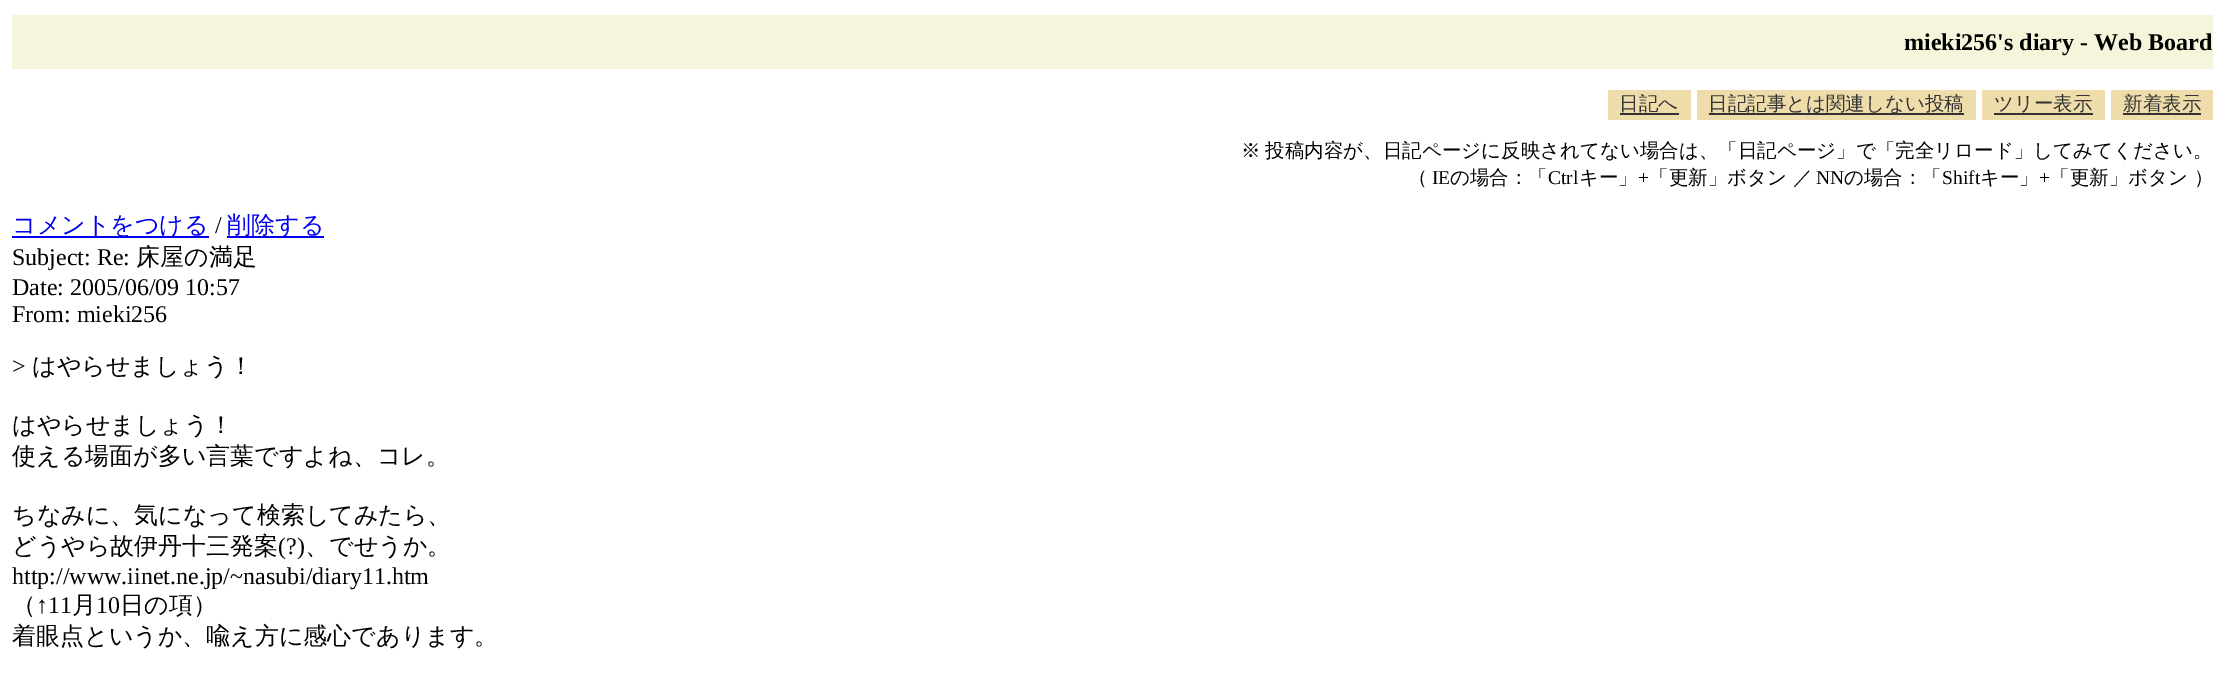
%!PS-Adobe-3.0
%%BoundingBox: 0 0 2224 676
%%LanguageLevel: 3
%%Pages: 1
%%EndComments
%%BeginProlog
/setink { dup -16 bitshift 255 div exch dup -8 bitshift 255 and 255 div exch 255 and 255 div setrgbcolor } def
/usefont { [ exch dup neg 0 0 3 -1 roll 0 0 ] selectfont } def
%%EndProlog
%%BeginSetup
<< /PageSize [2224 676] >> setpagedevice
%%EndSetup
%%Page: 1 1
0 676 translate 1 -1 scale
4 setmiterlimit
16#FFFFFF setink
0 0 2224 676 rectfill
16#F5F5DC setink
12 15 2201 54 rectfill
/LiberationSerif-Bold 24 usefont
16#000000 setink
1904 50 moveto (mieki256's diary - Web Board) show
16#EEDDAA setink
1608 90 83 30 rectfill
/WenQuanYiZenHei-Medium 19.5 usefont
16#333333 setink
1619 110 moveto (日記へ) show
[
    [1620 113 59 2 16#333333]
    [1697 90 279 30 16#EEDDAA]
    [1709 113 255 2 16#333333]
] { aload pop setink rectfill } forall
1708 110 moveto (日記記事とは関連しない投稿) show
16#EEDDAA setink
1982 90 123 30 rectfill
16#333333 setink
1994 110 moveto (ツリー表示) show
1994 113 99 2 rectfill
16#EEDDAA setink
2111 90 102 30 rectfill
16#333333 setink
2123 110 moveto (新着表示) show
2123 113 78 2 rectfill
16#000000 setink
1241 157 moveto -1 0 32 (※ 投稿内容が、日記ページに反映されてない場合は、「日記ページ」で「完全リロード」してみてください。) widthshow
1408 184 moveto (（) show
/LiberationSerif-Regular 19.5 usefont
1432 184 moveto (IE) show
/WenQuanYiZenHei-Medium 19.5 usefont
1450 184 moveto (の場合：「) show
/LiberationSerif-Regular 19.5 usefont
1548 184 moveto (Ctrl) show
/WenQuanYiZenHei-Medium 19.5 usefont
1579 184 moveto (キー」) show
/LiberationSerif-Regular 19.5 usefont
1638 184 moveto (+) show
/WenQuanYiZenHei-Medium 19.5 usefont
1649 184 moveto (「更新」ボタン ／) show
/LiberationSerif-Regular 19.5 usefont
1816 184 moveto (NN) show
/WenQuanYiZenHei-Medium 19.5 usefont
1844 184 moveto (の場合：「) show
/LiberationSerif-Regular 19.5 usefont
1942 184 moveto (Shift) show
/WenQuanYiZenHei-Medium 19.5 usefont
1980 184 moveto (キー」) show
/LiberationSerif-Regular 19.5 usefont
2039 184 moveto (+) show
/WenQuanYiZenHei-Medium 19.5 usefont
2050 184 moveto (「更新」ボタン ）) show
16#0000EE setink
12 236 197 2 rectfill
/WenQuanYiZenHei-Medium 24 usefont
12 233 moveto (コメントをつける) show
/LiberationSerif-Regular 24 usefont
16#000000 setink
215 233 moveto (/) show
16#0000EE setink
227 236 97 2 rectfill
/WenQuanYiZenHei-Medium 24 usefont
227 233 moveto (削除する) show
/LiberationSerif-Regular 24 usefont
16#000000 setink
12 265 moveto (Subject: Re:) show
/WenQuanYiZenHei-Medium 24 usefont
136 265 moveto (床屋の満足) show
/LiberationSerif-Regular 24 usefont
[
    [(Date: 2005/06/09 10:57) 12 295]
    [(From: mieki256) 12 322]
    [(>) 12 374]
] { aload pop moveto show } forall
/WenQuanYiZenHei-Medium 24 usefont
[
    [(はやらせましょう！) 32 374]
    [(はやらせましょう！) 12 433]
    [(使える場面が多い言葉ですよね、コレ。) 12 464]
    [(ちなみに、気になって検索してみたら、) 12 523]
    [(どうやら故伊丹十三発案) 12 554]
] { aload pop moveto show } forall
/LiberationSerif-Regular 24 usefont
278 554 moveto (\(?\)) show
/WenQuanYiZenHei-Medium 24 usefont
305 554 moveto (、でせうか。) show
/LiberationSerif-Regular 24 usefont
12 584 moveto (http://www.iinet.ne.jp/~nasubi/diary11.htm) show
/WenQuanYiZenHei-Medium 24 usefont
12 613 moveto (（) show
/LiberationSerif-Regular 24 usefont
36 613 moveto (↑11) show
/WenQuanYiZenHei-Medium 24 usefont
72 613 moveto (月) show
/LiberationSerif-Regular 24 usefont
96 613 moveto (10) show
/WenQuanYiZenHei-Medium 24 usefont
120 613 moveto (日の項）) show
12 644 moveto (着眼点というか、喩え方に感心であります。) show
showpage
%%EOF
